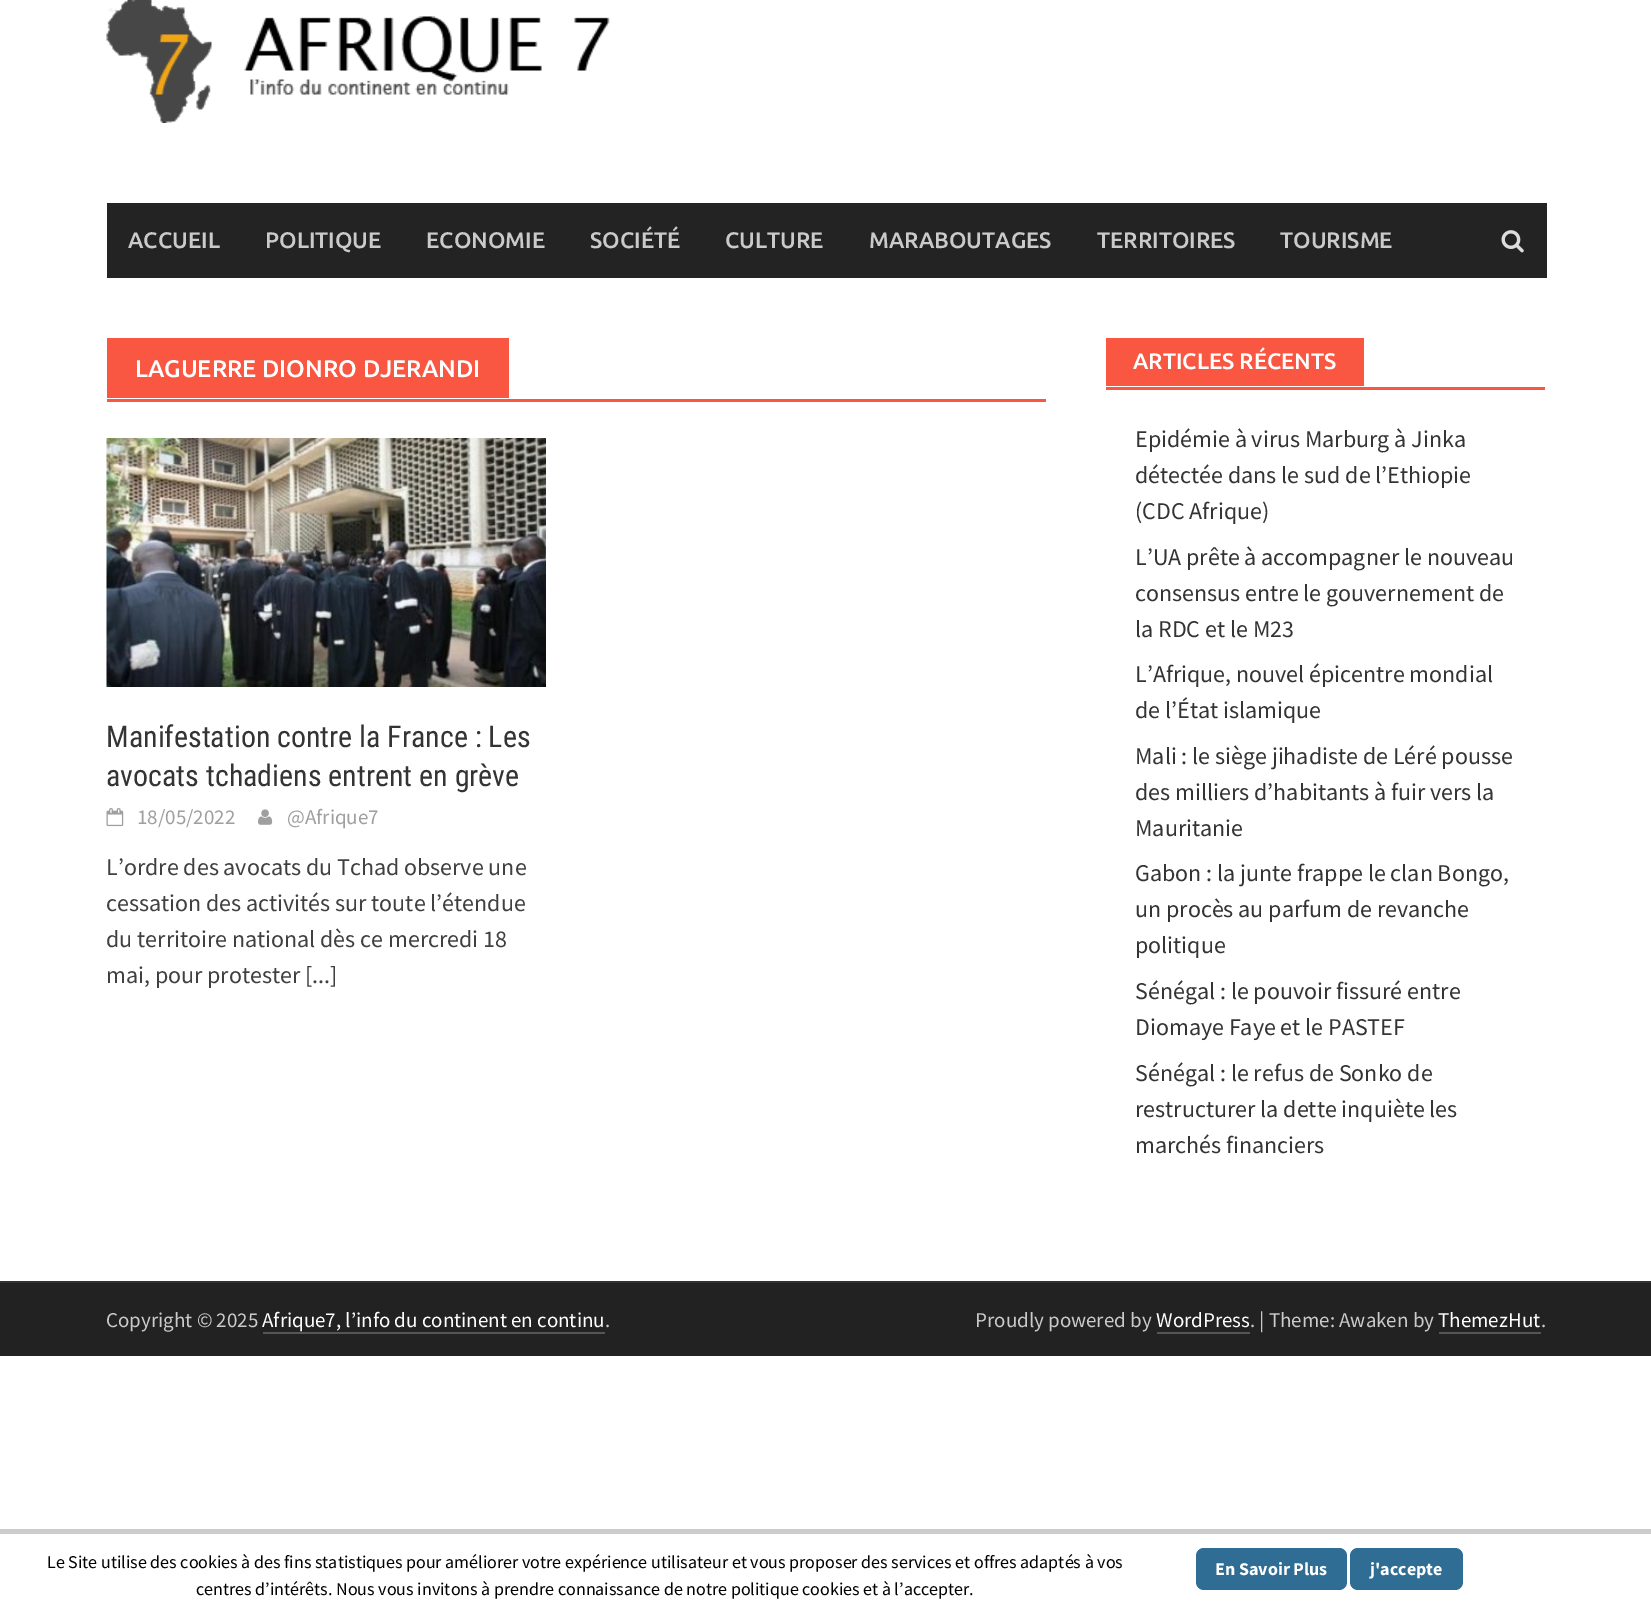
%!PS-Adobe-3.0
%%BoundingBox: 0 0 1651 1616
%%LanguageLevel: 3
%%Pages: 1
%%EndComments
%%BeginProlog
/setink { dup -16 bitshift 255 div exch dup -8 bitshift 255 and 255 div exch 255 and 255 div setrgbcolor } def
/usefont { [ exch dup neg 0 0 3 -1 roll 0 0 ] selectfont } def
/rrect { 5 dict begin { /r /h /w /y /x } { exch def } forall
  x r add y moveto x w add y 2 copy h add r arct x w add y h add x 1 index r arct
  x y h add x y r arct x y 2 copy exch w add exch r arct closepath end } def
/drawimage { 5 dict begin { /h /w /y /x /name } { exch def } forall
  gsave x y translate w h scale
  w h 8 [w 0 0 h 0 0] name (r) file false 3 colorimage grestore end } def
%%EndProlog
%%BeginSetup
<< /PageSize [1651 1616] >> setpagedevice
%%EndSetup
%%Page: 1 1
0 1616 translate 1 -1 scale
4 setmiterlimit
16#FFFFFF setink
0 0 1651 1616 rectfill
(img1.raw) 106 0 504 123 drawimage
16#232323 setink
107 203 1440 75 rectfill
/Ubuntu-Medium 22.5 usefont
16#CACACA setink
[
    [(ACCUEIL) 128 248]
    [(POLITIQUE) 265 248]
    [(ECONOMIE) 426 248]
    [(SOCIÉTÉ) 590 248]
    [(CULTURE) 725 248]
    [(MARABOUTAGES) 869 248]
    [(TERRITOIRES) 1097 248]
    [(TOURISME) 1280 248]
] { aload pop moveto show } forall
(img2.raw) 1501 230 23 23 drawimage
16#FA5742 setink
107 399 939 3 rectfill
107 338 402 60 rectfill
/Ubuntu-Medium 24 usefont
16#FFFFFF setink
135 377 moveto (LAGUERRE DIONRO DJERANDI) show
(img3.raw) 106 438 440 249 drawimage
/RobotoCondensed-Regular 30 usefont
16#353434 setink
106 747 moveto (Manifestation contre la France : Les) show
106 786 moveto (avocats tchadiens entrent en grève) show
(img4.raw) 106 808 18 19 drawimage
/SourceSansPro-Regular 21 usefont
16#9F9F9F setink
137 824 moveto (18/05/2022) show
(img5.raw) 258 809 15 16 drawimage
287 824 moveto (@Afrique7) show
/SourceSansPro-Regular 24 usefont
16#404040 setink
[
    [(L’ordre des avocats du Tchad observe une) 106 875]
    [(cessation des activités sur toute l’étendue) 106 911]
    [(du territoire national dès ce mercredi 18) 106 947]
    [(mai, pour protester [...]) 106 983]
] { aload pop moveto show } forall
16#FA5742 setink
1106 387 439 3 rectfill
1106 338 258 48 rectfill
/Ubuntu-Medium 22.5 usefont
16#FFFFFF setink
1133 369 moveto (ARTICLES RÉCENTS) show
/SourceSansPro-Regular 24 usefont
16#353434 setink
[
    [(Epidémie à virus Marburg à Jinka) 1135 447]
    [(détectée dans le sud de l’Ethiopie) 1135 483]
    [(\(CDC Afrique\)) 1135 519]
    [(L’UA prête à accompagner le nouveau) 1135 565]
    [(consensus entre le gouvernement de) 1135 601]
    [(la RDC et le M23) 1135 637]
    [(L’Afrique, nouvel épicentre mondial) 1135 682]
    [(de l’État islamique) 1135 718]
    [(Mali : le siège jihadiste de Léré pousse) 1135 764]
    [(des milliers d’habitants à fuir vers la) 1135 800]
    [(Mauritanie) 1135 836]
    [(Gabon : la junte frappe le clan Bongo,) 1135 881]
    [(un procès au parfum de revanche) 1135 917]
    [(politique) 1135 953]
    [(Sénégal : le pouvoir fissuré entre) 1135 999]
    [(Diomaye Faye et le PASTEF) 1135 1035]
    [(Sénégal : le refus de Sonko de) 1135 1081]
    [(restructurer la dette inquiète les) 1135 1117]
    [(marchés financiers) 1135 1153]
] { aload pop moveto show } forall
16#323232 setink
0 1281 1651 2 rectfill
16#222222 setink
0 1283 1651 73 rectfill
/SourceSansPro-Regular 21 usefont
16#CACACA setink
106 1327 moveto (Copyright © 2025) show
16#FFFFFF setink
262 1327 moveto (Afrique7, l’info du continent en continu) show
16#555555 setink
263 1332 342 2 rectfill
16#CACACA setink
605 1327 moveto (.) show
975 1327 moveto (Proudly powered by) show
16#FFFFFF setink
1156 1327 moveto (WordPress) show
16#555555 setink
1157 1332 93 2 rectfill
16#CACACA setink
1250 1327 moveto (. | Theme: Awaken by) show
16#FFFFFF setink
1438 1327 moveto (ThemezHut) show
16#555555 setink
1439 1332 102 2 rectfill
16#CACACA setink
1541 1327 moveto (.) show
16#CCCCCC setink
0 1529 1651 5 rectfill
/SourceSansPro-Regular 18 usefont
16#000000 setink
47 1568 moveto (Le Site utilise des cookies à des fins statistiques pour améliorer votre expérience utilisateur et vous proposer des services et offres adaptés à vos) show
196 1595 moveto (centres d’intérêts. Nous vous invitons à prendre connaissance de notre politique cookies et à l’accepter.) show
16#2F6D94 setink
1196 1548 151 42 8 rrect fill
/SourceSansPro-Bold 18 usefont
16#FFFFFF setink
1215 1575 moveto (En Savoir Plus) show
16#2F6D94 setink
1350 1548 113 42 8 rrect fill
16#FFFFFF setink
1370 1575 moveto (j'accepte) show
showpage
%%EOF
